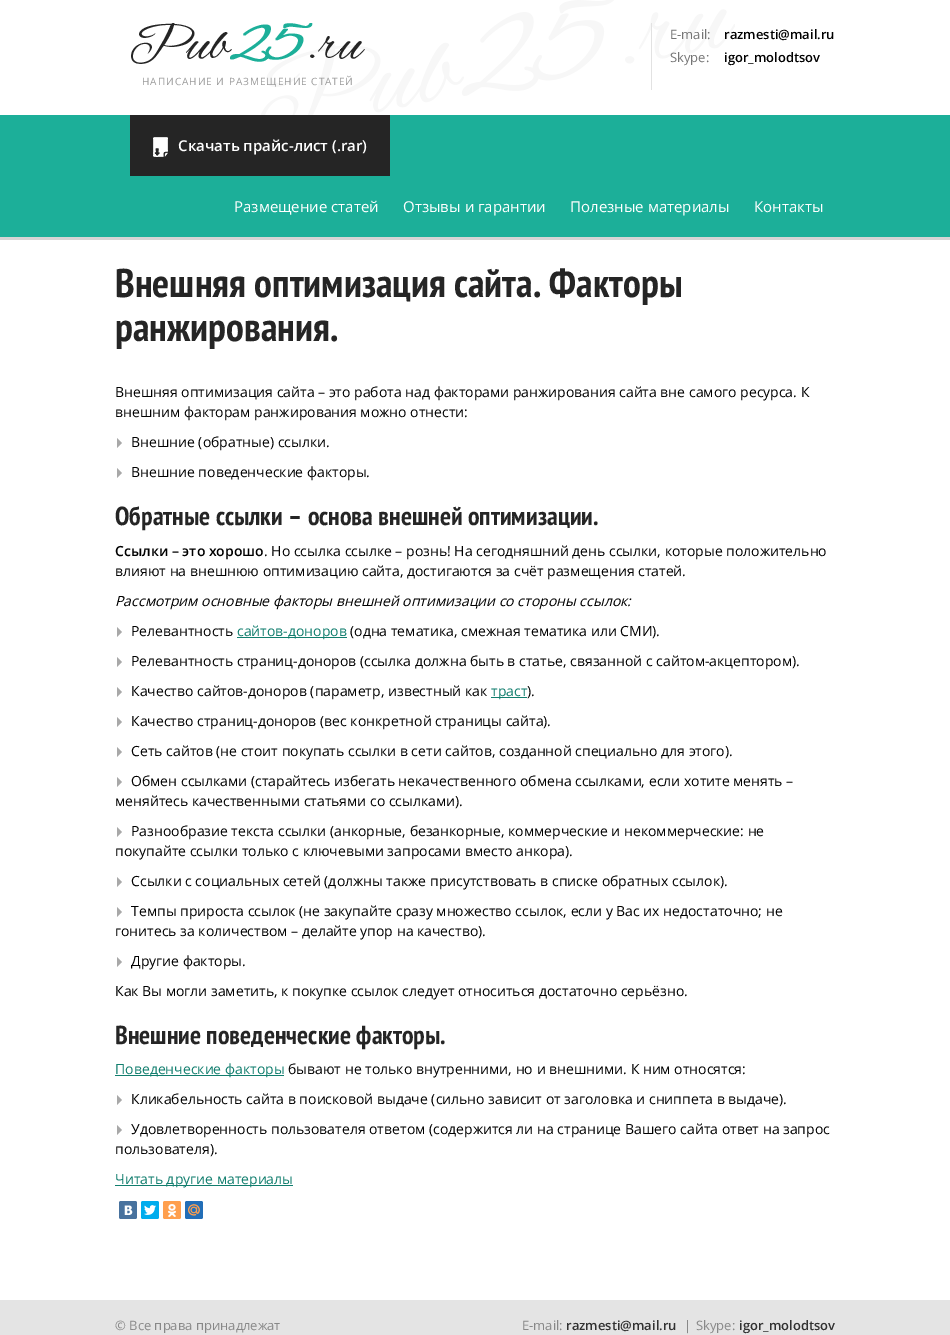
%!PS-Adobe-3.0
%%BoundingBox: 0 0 950 1335
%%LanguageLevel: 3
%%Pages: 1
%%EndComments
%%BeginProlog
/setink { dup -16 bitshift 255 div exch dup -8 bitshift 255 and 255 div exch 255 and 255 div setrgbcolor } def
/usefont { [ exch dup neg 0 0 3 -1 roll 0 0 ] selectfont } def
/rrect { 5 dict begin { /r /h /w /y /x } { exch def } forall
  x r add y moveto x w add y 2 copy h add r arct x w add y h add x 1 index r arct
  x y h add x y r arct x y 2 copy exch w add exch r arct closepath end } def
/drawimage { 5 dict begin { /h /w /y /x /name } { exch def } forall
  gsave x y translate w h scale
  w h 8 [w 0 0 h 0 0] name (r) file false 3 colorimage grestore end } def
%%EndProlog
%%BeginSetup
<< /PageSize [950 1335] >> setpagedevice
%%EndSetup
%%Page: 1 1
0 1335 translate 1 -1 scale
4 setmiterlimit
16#FFFFFF setink
0 0 950 1335 rectfill
(img1.raw) 260 0 475 115 drawimage
16#E2E2E2 setink
651 23 1 67 rectfill
/OpenSans-Regular 13 usefont
16#757575 setink
670 39 moveto (E-mail:) show
/OpenSans-SemiBold 13 usefont
16#000000 setink
724 39 moveto (razmesti@mail.ru) show
/OpenSans-Regular 13 usefont
16#757575 setink
670 62 moveto (Skype:) show
/OpenSans-SemiBold 13 usefont
16#000000 setink
724 62 moveto (igor_molodtsov) show
(img2.raw) 131 23 234 41 drawimage
/OpenSans-Regular 10 usefont
16#9B9B9B setink
142 85 moveto 1 0 (НАПИСАНИЕ И РАЗМЕЩЕНИЕ СТАТЕЙ) ashow
[
    [0 115 950 122 16#1CAF99]
    [0 237 950 3 16#D5D5D5]
    [130 115 260 61 16#252525]
] { aload pop setink rectfill } forall
(img3.raw) 153 137 15 20 drawimage
/OpenSans-SemiBold 15 usefont
16#FFFFFF setink
178 151 moveto (Скачать прайс-лист \(.rar\)) show
/OpenSans-Regular 15 usefont
[
    [(Размещение статей) 234 212]
    [(Отзывы и гарантии) 403 212]
    [(Полезные материалы) 570 212]
    [(Контакты) 754 212]
] { aload pop moveto show } forall
/PTSansNarrow-Bold 40 usefont
16#252525 setink
115 297 moveto (Внешняя оптимизация сайта. Факторы) show
115 341 moveto (ранжирования.) show
/OpenSans-Regular 14 usefont
16#000000 setink
115 397 moveto (Внешняя оптимизация сайта – это работа над факторами ранжирования сайта вне самого ресурса. К) show
115 417 moveto (внешним факторам ранжирования можно отнести:) show
16#A8A8A8 setink
117 448 moveto 117 438 lineto 122 443 lineto closepath fill
16#000000 setink
131 447 moveto (Внешние \(обратные\) ссылки.) show
16#A8A8A8 setink
117 478 moveto 117 468 lineto 122 473 lineto closepath fill
16#000000 setink
131 477 moveto (Внешние поведенческие факторы.) show
/PTSansNarrow-Bold 26 usefont
16#252525 setink
115 525 moveto (Обратные ссылки – основа внешней оптимизации.) show
/OpenSans-SemiBold 14 usefont
16#000000 setink
115 556 moveto (Ссылки – это хорошо) show
/OpenSans-Regular 14 usefont
264 556 moveto (. Но ссылка ссылке – рознь! На сегодняшний день ссылки, которые положительно) show
115 576 moveto (влияют на внешнюю оптимизацию сайта, достигаются за счёт размещения статей.) show
/OpenSans-Italic 14 usefont
115 606 moveto (Рассмотрим основные факторы внешней оптимизации со стороны ссылок:) show
16#A8A8A8 setink
117 637 moveto 117 627 lineto 122 632 lineto closepath fill
/OpenSans-Regular 14 usefont
16#000000 setink
131 636 moveto (Релевантность) show
16#117E6E setink
237 637 110 1 rectfill
237 636 moveto (сайтов-доноров) show
16#000000 setink
350 636 moveto (\(одна тематика, смежная тематика или СМИ\).) show
16#A8A8A8 setink
117 667 moveto 117 657 lineto 122 662 lineto closepath fill
16#000000 setink
131 666 moveto (Релевантность страниц-доноров \(ссылка должна быть в статье, связанной с сайтом-акцептором\).) show
16#A8A8A8 setink
117 697 moveto 117 687 lineto 122 692 lineto closepath fill
16#000000 setink
131 696 moveto (Качество сайтов-доноров \(параметр, известный как) show
16#117E6E setink
491 697 36 1 rectfill
491 696 moveto (траст) show
16#000000 setink
527 696 moveto (\).) show
16#A8A8A8 setink
117 727 moveto 117 717 lineto 122 722 lineto closepath fill
16#000000 setink
131 726 moveto (Качество страниц-доноров \(вес конкретной страницы сайта\).) show
16#A8A8A8 setink
117 757 moveto 117 747 lineto 122 752 lineto closepath fill
16#000000 setink
131 756 moveto (Сеть сайтов \(не стоит покупать ссылки в сети сайтов, созданной специально для этого\).) show
16#A8A8A8 setink
117 787 moveto 117 777 lineto 122 782 lineto closepath fill
16#000000 setink
131 786 moveto (Обмен ссылками \(старайтесь избегать некачественного обмена ссылками, если хотите менять –) show
115 806 moveto (меняйтесь качественными статьями со ссылками\).) show
16#A8A8A8 setink
117 837 moveto 117 827 lineto 122 832 lineto closepath fill
16#000000 setink
131 836 moveto (Разнообразие текста ссылки \(анкорные, безанкорные, коммерческие и некоммерческие: не) show
115 856 moveto (покупайте ссылки только с ключевыми запросами вместо анкора\).) show
16#A8A8A8 setink
117 887 moveto 117 877 lineto 122 882 lineto closepath fill
16#000000 setink
131 886 moveto (Ссылки с социальных сетей \(должны также присутствовать в списке обратных ссылок\).) show
16#A8A8A8 setink
117 917 moveto 117 907 lineto 122 912 lineto closepath fill
16#000000 setink
131 916 moveto (Темпы прироста ссылок \(не закупайте сразу множество ссылок, если у Вас их недостаточно; не) show
115 936 moveto (гонитесь за количеством – делайте упор на качество\).) show
16#A8A8A8 setink
117 967 moveto 117 957 lineto 122 962 lineto closepath fill
16#000000 setink
131 966 moveto (Другие факторы.) show
115 996 moveto (Как Вы могли заметить, к покупке ссылок следует относиться достаточно серьёзно.) show
/PTSansNarrow-Bold 26 usefont
16#252525 setink
115 1044 moveto (Внешние поведенческие факторы.) show
16#117E6E setink
115 1075 169 1 rectfill
/OpenSans-Regular 14 usefont
115 1074 moveto (Поведенческие факторы) show
16#000000 setink
288 1074 moveto (бывают не только внутренними, но и внешними. К ним относятся:) show
16#A8A8A8 setink
117 1105 moveto 117 1095 lineto 122 1100 lineto closepath fill
16#000000 setink
131 1104 moveto (Кликабельность сайта в поисковой выдаче \(сильно зависит от заголовка и сниппета в выдаче\).) show
16#A8A8A8 setink
117 1135 moveto 117 1125 lineto 122 1130 lineto closepath fill
16#000000 setink
131 1134 moveto (Удовлетворенность пользователя ответом \(содержится ли на странице Вашего сайта ответ на запрос) show
115 1154 moveto (пользователя\).) show
16#117E6E setink
115 1185 178 1 rectfill
115 1184 moveto (Читать другие материалы) show
16#48729E setink
119 1201 18 18 2 rrect fill
(img4.raw) 124 1205 9 10 drawimage
16#00ACED setink
141 1201 18 18 2 rrect fill
(img5.raw) 144 1205 12 10 drawimage
16#FF9F4D setink
163 1201 18 18 2 rrect fill
(img6.raw) 168 1204 8 13 drawimage
16#226EB7 setink
185 1201 18 18 2 rrect fill
(img7.raw) 188 1204 12 12 drawimage
16#E4E4E4 setink
0 1300 950 35 rectfill
/OpenSans-Regular 13 usefont
16#888888 setink
115 1330 moveto (© Все права принадлежат) show
522 1330 moveto (E-mail:) show
/OpenSans-SemiBold 13 usefont
16#313131 setink
566 1330 moveto (razmesti@mail.ru) show
/OpenSans-Regular 13 usefont
16#888888 setink
684 1330 moveto (|) show
696 1330 moveto (Skype:) show
/OpenSans-SemiBold 13 usefont
16#313131 setink
739 1330 moveto (igor_molodtsov) show
showpage
%%EOF
